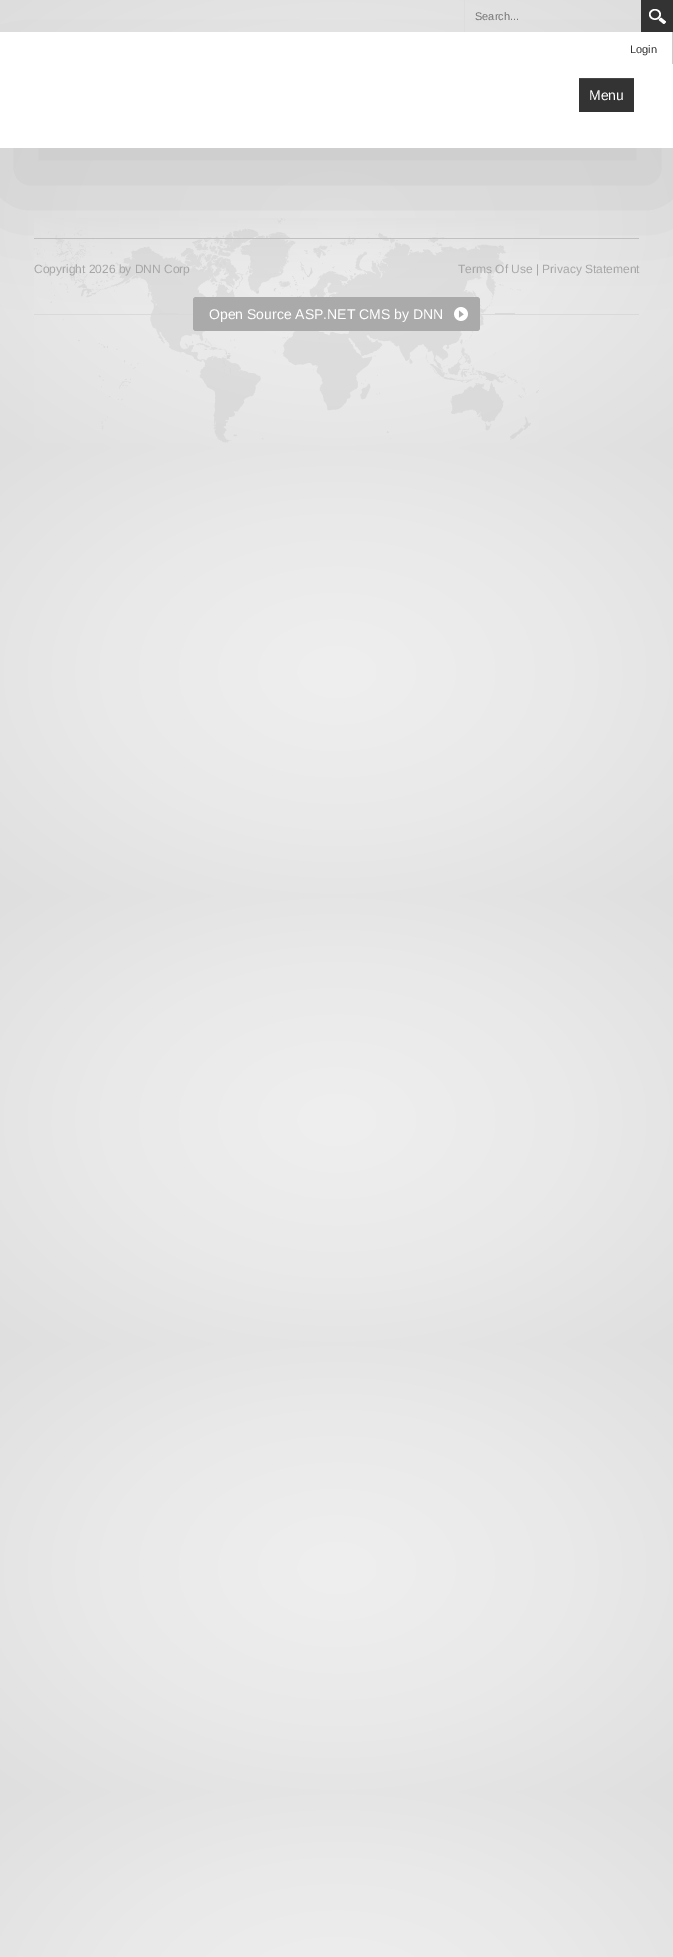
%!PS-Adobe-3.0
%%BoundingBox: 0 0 673 1957
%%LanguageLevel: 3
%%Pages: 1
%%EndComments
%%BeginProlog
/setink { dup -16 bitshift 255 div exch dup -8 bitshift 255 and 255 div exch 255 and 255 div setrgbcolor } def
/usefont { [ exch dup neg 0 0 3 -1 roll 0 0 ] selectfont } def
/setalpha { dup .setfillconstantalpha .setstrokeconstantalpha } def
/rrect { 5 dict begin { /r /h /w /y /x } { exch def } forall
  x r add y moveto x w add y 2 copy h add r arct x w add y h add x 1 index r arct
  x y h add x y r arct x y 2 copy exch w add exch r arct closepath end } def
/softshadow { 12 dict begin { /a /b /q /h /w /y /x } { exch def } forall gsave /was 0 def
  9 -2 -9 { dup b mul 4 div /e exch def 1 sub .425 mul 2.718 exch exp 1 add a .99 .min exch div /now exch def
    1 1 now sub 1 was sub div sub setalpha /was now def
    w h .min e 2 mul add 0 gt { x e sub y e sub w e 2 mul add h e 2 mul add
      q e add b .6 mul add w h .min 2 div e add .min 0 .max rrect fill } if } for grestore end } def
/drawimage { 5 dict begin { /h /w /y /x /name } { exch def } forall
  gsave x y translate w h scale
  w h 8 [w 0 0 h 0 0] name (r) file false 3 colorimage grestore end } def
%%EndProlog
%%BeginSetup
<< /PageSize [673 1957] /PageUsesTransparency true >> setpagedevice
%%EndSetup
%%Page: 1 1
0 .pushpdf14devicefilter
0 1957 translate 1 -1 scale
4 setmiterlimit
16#FFFFFF setink
0 0 673 1957 rectfill
gsave 0 0 moveto 673 0 lineto 673 448 lineto 0 448 lineto closepath clip newpath 337 224 translate 476 317 scale
<< /ShadingType 3 /ColorSpace /DeviceRGB /Coords [0 0 0 0 0 1] /Extend [true true] /Function << /FunctionType 3 /Domain [0 1] /Functions [<< /FunctionType 2 /Domain [0 1] /C0 [0.937 0.937 0.937] /C1 [0.914 0.914 0.914] /N 1 >> << /FunctionType 2 /Domain [0 1] /C0 [0.914 0.914 0.914] /C1 [0.875 0.875 0.875] /N 1 >>] /Bounds [0.5] /Encode [0 1 0 1] >> >> shfill grestore
gsave 0 448 moveto 673 448 lineto 673 896 lineto 0 896 lineto closepath clip newpath 337 672 translate 476 317 scale
<< /ShadingType 3 /ColorSpace /DeviceRGB /Coords [0 0 0 0 0 1] /Extend [true true] /Function << /FunctionType 3 /Domain [0 1] /Functions [<< /FunctionType 2 /Domain [0 1] /C0 [0.937 0.937 0.937] /C1 [0.914 0.914 0.914] /N 1 >> << /FunctionType 2 /Domain [0 1] /C0 [0.914 0.914 0.914] /C1 [0.875 0.875 0.875] /N 1 >>] /Bounds [0.5] /Encode [0 1 0 1] >> >> shfill grestore
gsave 0 896 moveto 673 896 lineto 673 1344 lineto 0 1344 lineto closepath clip newpath 337 1120 translate 476 317 scale
<< /ShadingType 3 /ColorSpace /DeviceRGB /Coords [0 0 0 0 0 1] /Extend [true true] /Function << /FunctionType 3 /Domain [0 1] /Functions [<< /FunctionType 2 /Domain [0 1] /C0 [0.937 0.937 0.937] /C1 [0.914 0.914 0.914] /N 1 >> << /FunctionType 2 /Domain [0 1] /C0 [0.914 0.914 0.914] /C1 [0.875 0.875 0.875] /N 1 >>] /Bounds [0.5] /Encode [0 1 0 1] >> >> shfill grestore
gsave 0 1344 moveto 673 1344 lineto 673 1792 lineto 0 1792 lineto closepath clip newpath 337 1568 translate 476 317 scale
<< /ShadingType 3 /ColorSpace /DeviceRGB /Coords [0 0 0 0 0 1] /Extend [true true] /Function << /FunctionType 3 /Domain [0 1] /Functions [<< /FunctionType 2 /Domain [0 1] /C0 [0.937 0.937 0.937] /C1 [0.914 0.914 0.914] /N 1 >> << /FunctionType 2 /Domain [0 1] /C0 [0.914 0.914 0.914] /C1 [0.875 0.875 0.875] /N 1 >>] /Bounds [0.5] /Encode [0 1 0 1] >> >> shfill grestore
gsave 0 1792 moveto 673 1792 lineto 673 1957 lineto 0 1957 lineto closepath clip newpath 337 2016 translate 476 317 scale
<< /ShadingType 3 /ColorSpace /DeviceRGB /Coords [0 0 0 0 0 1] /Extend [true true] /Function << /FunctionType 3 /Domain [0 1] /Functions [<< /FunctionType 2 /Domain [0 1] /C0 [0.937 0.937 0.937] /C1 [0.914 0.914 0.914] /N 1 >> << /FunctionType 2 /Domain [0 1] /C0 [0.914 0.914 0.914] /C1 [0.875 0.875 0.875] /N 1 >>] /Bounds [0.5] /Encode [0 1 0 1] >> >> shfill grestore
16#CACACA setink
1 82 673 116 0 50 1 softshadow
16#DDDDDD setink
464 0 1 32 rectfill
/LiberationSans-Regular 11 usefont
16#757575 setink
475 20 moveto (Search...) show
16#333333 setink
641 0 32 32 rectfill
(img1.raw) 649 9 17 15 drawimage
16#FFFFFF setink
0 32 673 116 rectfill
16#CCCCCC setink
672 32 1 32 rectfill
16#333333 setink
630 53 moveto (Login) show
579 79 55 33 rectfill
16#474747 setink
579 78 55 1 rectfill
/LiberationSans-Regular 14 usefont
16#FFFFFF setink
589 100 moveto (Menu) show
(img2.raw) 34 218 505 225 drawimage
16#C0C0C0 setink
34 238 605 1 rectfill
/LiberationSans-Regular 12 usefont
16#A6A6A6 setink
34 273 moveto (Copyright 2026 by DNN Corp) show
458 273 moveto (Terms Of Use | Privacy Statement) show
(img3.raw) 34 314 605 1 drawimage
16#D9D9D9 setink
158 313 20 1 rectfill
16#AAAAAA setink
193 297 287 34 3 rrect fill
/LiberationSans-Regular 14 usefont
16#FFFFFF setink
209 319 moveto (Open Source ASP.NET CMS by DNN) show
(img4.raw) 454 307 14 14 drawimage
16#D9D9D9 setink
495 313 20 1 rectfill
.poppdf14devicefilter showpage
%%EOF
